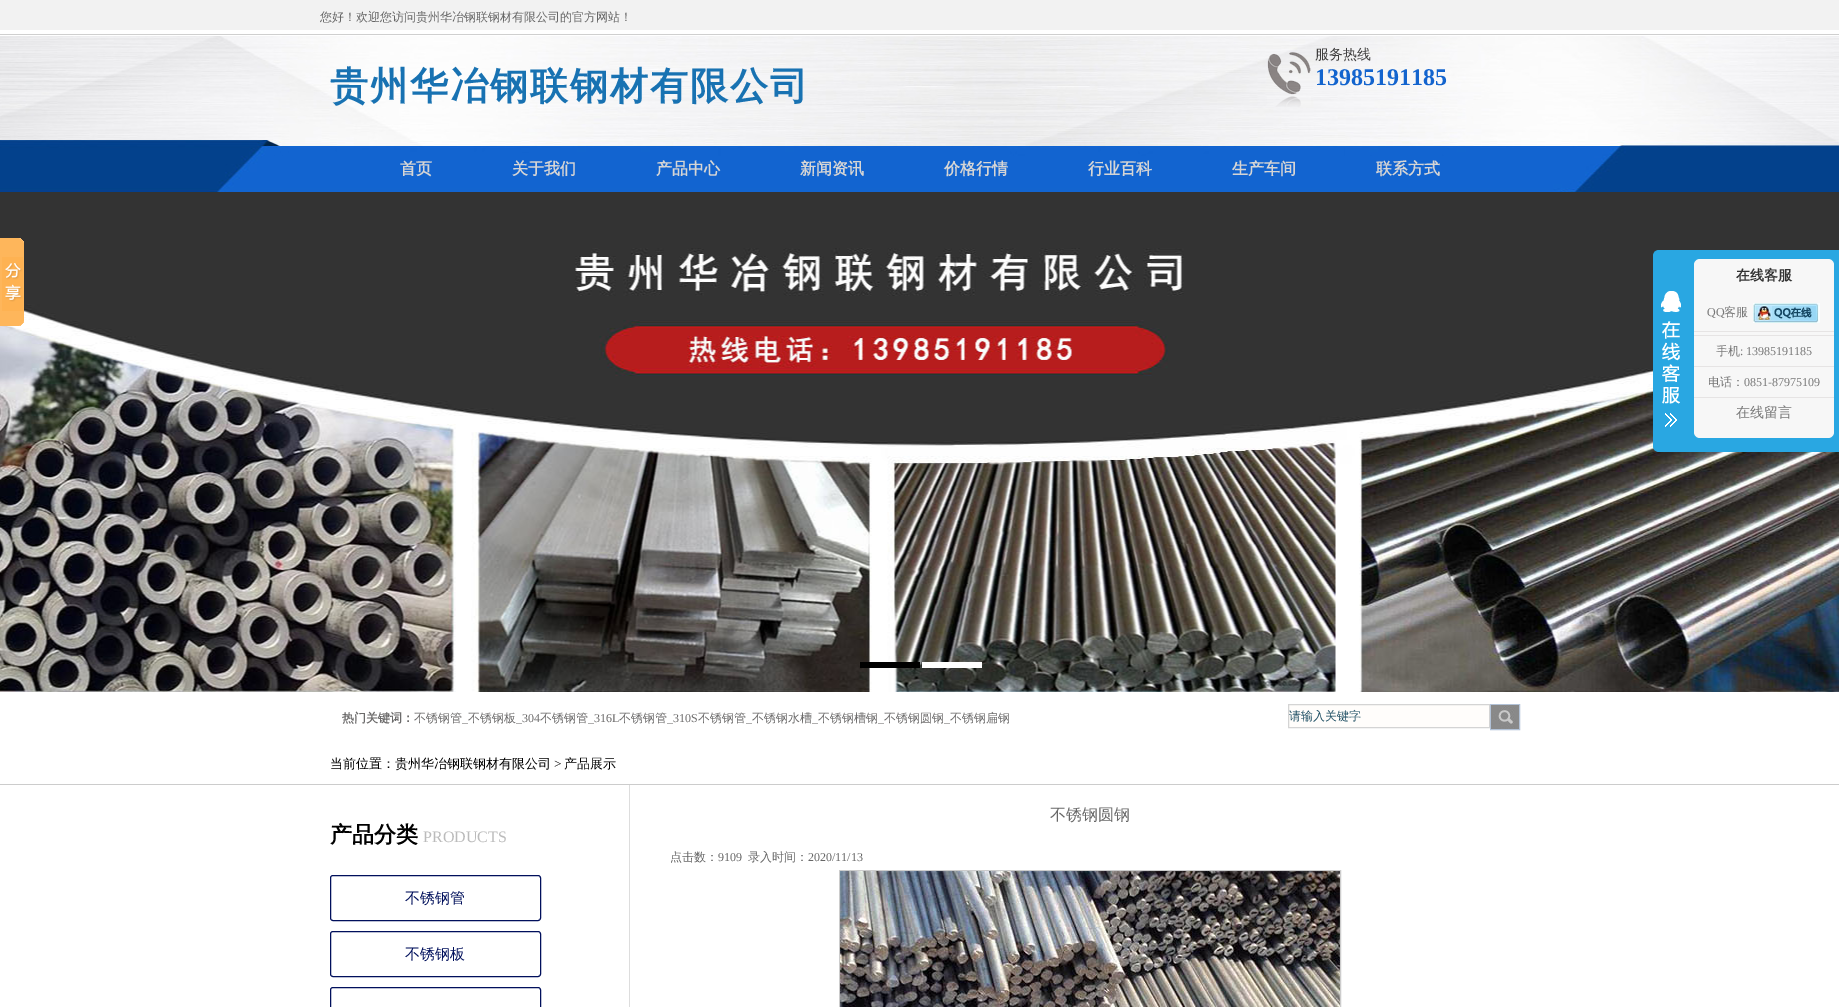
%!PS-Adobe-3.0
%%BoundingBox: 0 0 1839 1007
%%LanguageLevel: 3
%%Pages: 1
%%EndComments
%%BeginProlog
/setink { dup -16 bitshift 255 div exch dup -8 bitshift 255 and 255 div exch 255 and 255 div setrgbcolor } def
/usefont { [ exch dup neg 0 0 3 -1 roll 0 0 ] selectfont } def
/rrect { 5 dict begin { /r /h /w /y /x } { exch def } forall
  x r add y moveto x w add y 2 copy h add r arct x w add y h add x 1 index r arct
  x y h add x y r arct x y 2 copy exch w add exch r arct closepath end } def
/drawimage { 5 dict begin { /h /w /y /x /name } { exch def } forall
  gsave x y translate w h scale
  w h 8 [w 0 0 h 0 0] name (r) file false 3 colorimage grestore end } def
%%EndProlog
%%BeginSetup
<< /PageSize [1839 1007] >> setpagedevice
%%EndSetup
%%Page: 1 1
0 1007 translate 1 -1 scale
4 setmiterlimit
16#FFFFFF setink
0 0 1839 1007 rectfill
16#F2F2F2 setink
0 0 1839 30 rectfill
16#CFCFCF setink
0 34 1839 1 rectfill
/WenQuanYiZenHei-Medium 12 usefont
16#666666 setink
320 21 moveto (您好！欢迎您访问贵州华冶钢联钢材有限公司的官方网站！) show
(img1.raw) 0 36 1839 156 drawimage
/WenQuanYiZenHei-Bold 38 usefont
16#1872B2 setink
330 99 moveto 2 0 (贵州华冶钢联钢材有限公司) ashow
(img2.raw) 1267 52 44 55 drawimage
/WenQuanYiZenHei-Medium 14 usefont
16#403F3F setink
1315 59 moveto (服务热线) show
/LiberationSerif-Bold 24 usefont
16#1364CE setink
1315 85 moveto (13985191185) show
/WenQuanYiZenHei-Bold 16 usefont
16#D5D5D5 setink
[
    [(首页) 400 174]
    [(关于我们) 512 174]
    [(产品中心) 656 174]
    [(新闻资讯) 800 174]
    [(价格行情) 944 174]
    [(行业百科) 1088 174]
    [(生产车间) 1232 174]
    [(联系方式) 1376 174]
] { aload pop moveto show } forall
(img3.raw) 0 192 1839 500 drawimage
16#000000 setink
860 662 60 6 rectfill
16#FFFFFF setink
922 662 60 6 rectfill
(img4.raw) 0 238 24 88 drawimage
16#29A7E2 setink
1659 250 moveto 1839 250 lineto 1839 452 lineto 1659 452 lineto 1655.5 452 1653 449.5 1653 446 curveto 1653 256 lineto 1653 252.5 1655.5 250 1659 250 curveto closepath fill
(img5.raw) 1661 291 20 136 drawimage
16#F7F7F7 setink
1694 259 140 179 6 rrect fill
/WenQuanYiZenHei-Bold 14 usefont
16#333333 setink
1736 280 moveto (在线客服) show
16#E6E4E4 setink
1694 331 140 1 rectfill
/LiberationSerif-Regular 12 usefont
16#777777 setink
1707 316 moveto (QQ) show
/WenQuanYiZenHei-Medium 12 usefont
1724 316 moveto (客服) show
(img6.raw) 1753 303 67 20 drawimage
16#E6E4E4 setink
1694 335 140 1 rectfill
1694 366 140 1 rectfill
16#777777 setink
1716 355 moveto (手机) show
/LiberationSerif-Regular 12 usefont
1740 355 moveto (: 13985191185) show
16#E6E4E4 setink
1694 397 140 1 rectfill
/WenQuanYiZenHei-Medium 12 usefont
16#777777 setink
1708 386 moveto (电话：) show
/LiberationSerif-Regular 12 usefont
1744 386 moveto (0851-87975109) show
/WenQuanYiZenHei-Medium 14 usefont
1736 417 moveto (在线留言) show
/WenQuanYiZenHei-Bold 12 usefont
16#6C6B6B setink
342 722 moveto (热门关键词：) show
/WenQuanYiZenHei-Medium 12 usefont
414 722 moveto (不锈钢管) show
/LiberationSerif-Regular 12 usefont
462 722 moveto (_) show
/WenQuanYiZenHei-Medium 12 usefont
468 722 moveto (不锈钢板) show
/LiberationSerif-Regular 12 usefont
516 722 moveto (_304) show
/WenQuanYiZenHei-Medium 12 usefont
540 722 moveto (不锈钢管) show
/LiberationSerif-Regular 12 usefont
588 722 moveto (_316L) show
/WenQuanYiZenHei-Medium 12 usefont
619 722 moveto (不锈钢管) show
/LiberationSerif-Regular 12 usefont
667 722 moveto (_310S) show
/WenQuanYiZenHei-Medium 12 usefont
698 722 moveto (不锈钢管) show
/LiberationSerif-Regular 12 usefont
746 722 moveto (_) show
/WenQuanYiZenHei-Medium 12 usefont
752 722 moveto (不锈钢水槽) show
/LiberationSerif-Regular 12 usefont
812 722 moveto (_) show
/WenQuanYiZenHei-Medium 12 usefont
818 722 moveto (不锈钢槽钢) show
/LiberationSerif-Regular 12 usefont
878 722 moveto (_) show
/WenQuanYiZenHei-Medium 12 usefont
884 722 moveto (不锈钢圆钢) show
/LiberationSerif-Regular 12 usefont
944 722 moveto (_) show
/WenQuanYiZenHei-Medium 12 usefont
950 722 moveto (不锈钢扁钢) show
16#FFFDFB setink
1288.5 704.5 moveto 1489.5 704.5 lineto 1489.5 727.5 lineto 1288.5 727.5 lineto closepath gsave fill grestore
16#D4D4D4 setink
stroke
16#205064 setink
1289 720 moveto (请输入关键字) show
16#B2C2D7 setink
1490.5 704.5 29 25 rectstroke
(img7.raw) 1491 705 28 24 drawimage
16#CCCCCC setink
0 784 1839 1 rectfill
/WenQuanYiZenHei-Medium 13 usefont
16#000000 setink
330 768 moveto (当前位置：贵州华冶钢联钢材有限公司) show
/LiberationSerif-Regular 13 usefont
554 768 moveto (>) show
/WenQuanYiZenHei-Medium 13 usefont
564 768 moveto (产品展示) show
16#DDDDDD setink
629 785 1 222 rectfill
/WenQuanYiZenHei-Bold 22 usefont
16#000000 setink
330 842 moveto (产品分类) show
/LiberationSerif-Regular 16 usefont
16#BBBBBB setink
423 842 moveto (PRODUCTS) show
16#01105C setink
330.5 875.5 210 45 2.5 rrect stroke
/WenQuanYiZenHei-Medium 15 usefont
405 903 moveto (不锈钢管) show
330.5 931.5 210 45 2.5 rrect stroke
405 959 moveto (不锈钢板) show
330.5 987.5 210 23 2.5 rrect stroke
/WenQuanYiZenHei-Medium 16 usefont
16#666666 setink
1050 820 moveto (不锈钢圆钢) show
/WenQuanYiZenHei-Medium 12 usefont
670 861 moveto (点击数：) show
/LiberationSerif-Regular 12 usefont
718 861 moveto (9109) show
/WenQuanYiZenHei-Medium 12 usefont
748 861 moveto (录入时间：) show
/LiberationSerif-Regular 12 usefont
808 861 moveto (2020/11/13) show
16#CCCCCC setink
839.5 870.5 501 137 rectstroke
(img8.raw) 840 871 500 136 drawimage
showpage
%%EOF
